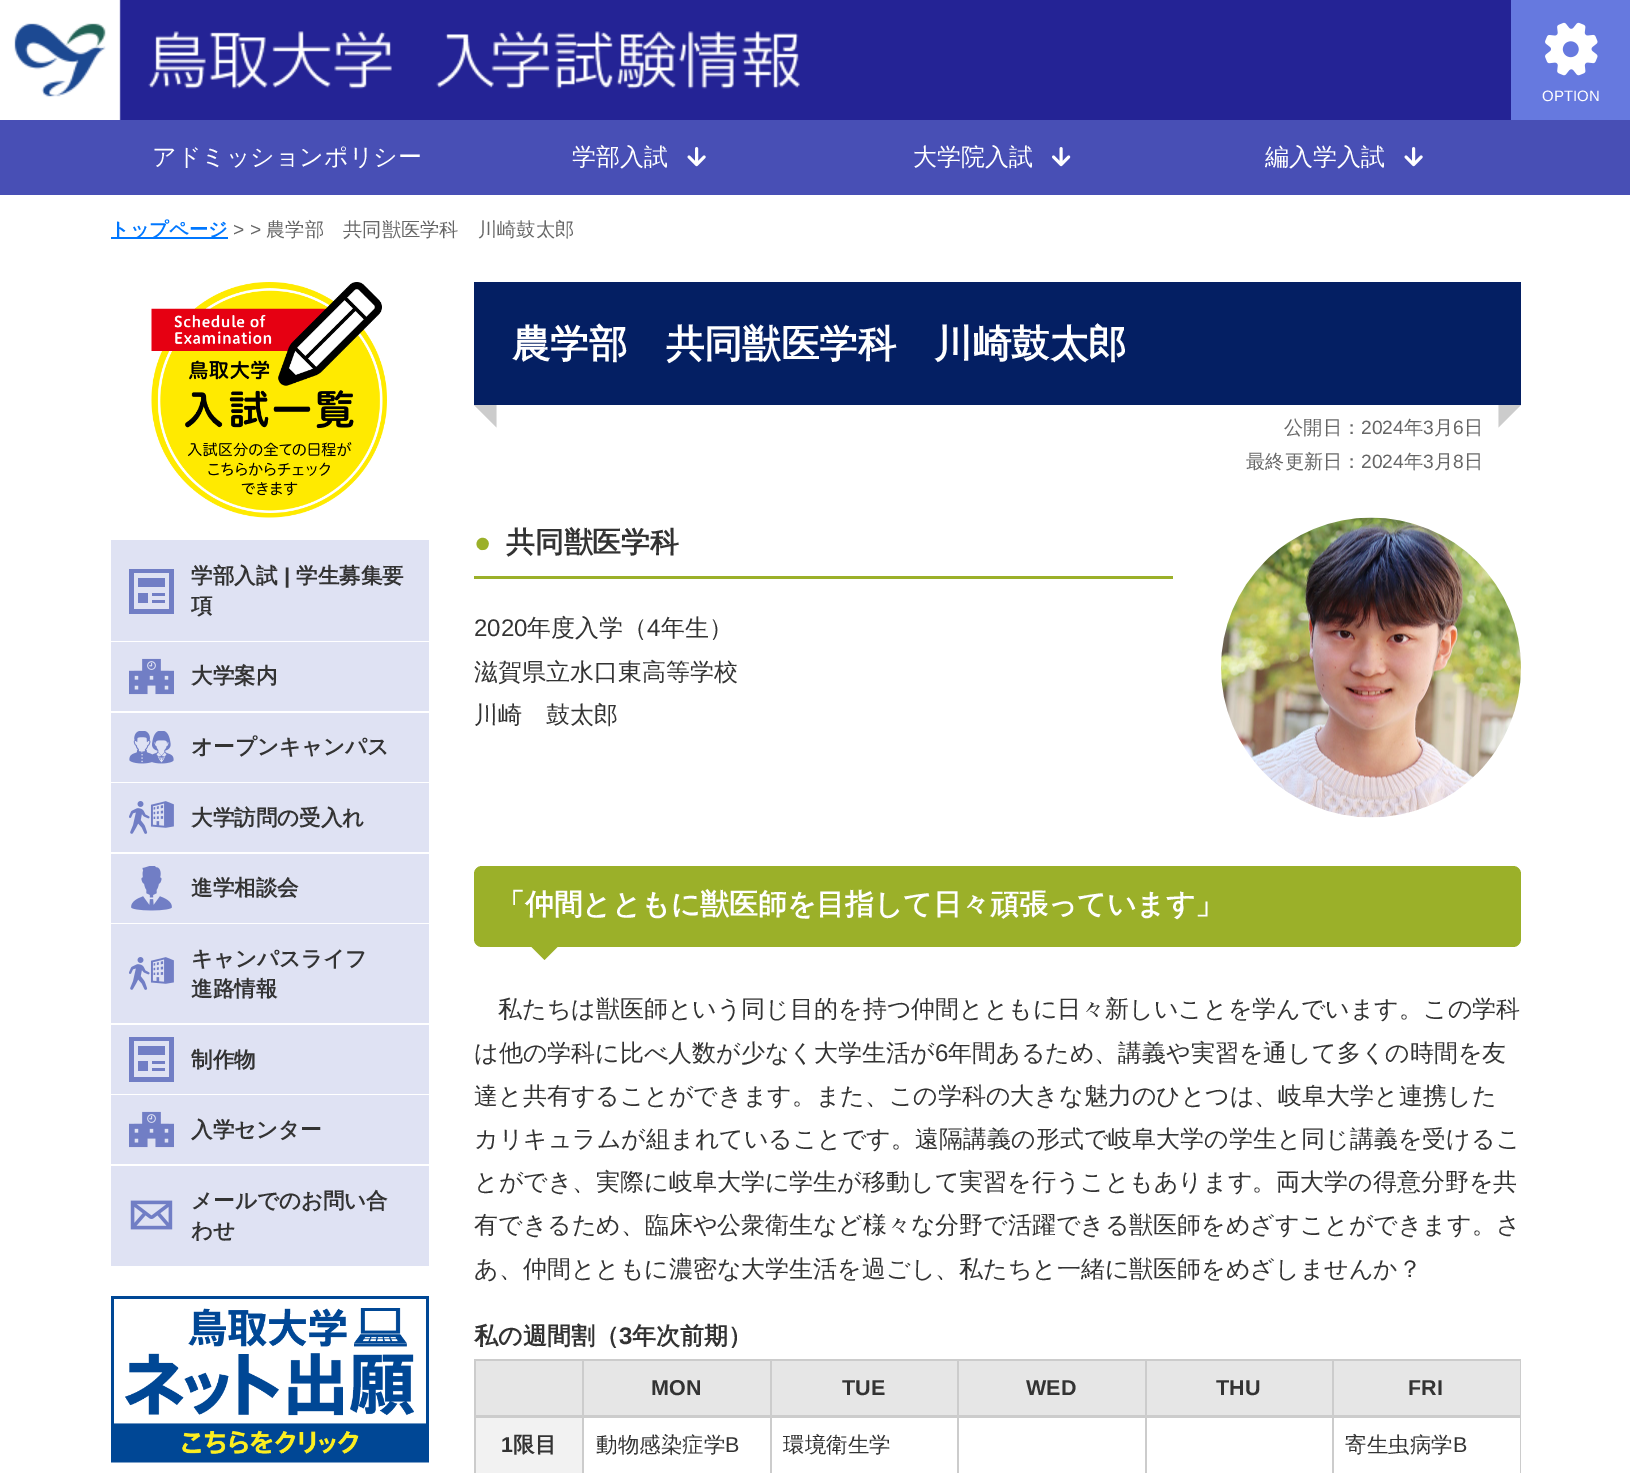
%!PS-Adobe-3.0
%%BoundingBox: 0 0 1630 1473
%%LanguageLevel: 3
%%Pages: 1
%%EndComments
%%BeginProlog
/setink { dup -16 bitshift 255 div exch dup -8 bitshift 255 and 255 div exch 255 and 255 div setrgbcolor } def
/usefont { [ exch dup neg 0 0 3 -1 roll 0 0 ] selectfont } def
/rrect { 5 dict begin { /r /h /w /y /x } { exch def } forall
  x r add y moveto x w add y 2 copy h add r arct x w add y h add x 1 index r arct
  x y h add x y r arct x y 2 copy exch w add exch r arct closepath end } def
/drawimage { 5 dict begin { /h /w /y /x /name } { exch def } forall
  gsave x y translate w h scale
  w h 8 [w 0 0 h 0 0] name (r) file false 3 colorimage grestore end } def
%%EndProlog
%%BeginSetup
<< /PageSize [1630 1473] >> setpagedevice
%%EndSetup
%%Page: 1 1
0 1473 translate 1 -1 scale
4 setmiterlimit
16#FFFFFF setink
0 0 1630 1473 rectfill
16#6679DF setink
1511 0 119 120 rectfill
(img1.raw) 1545 22 53 54 drawimage
/LiberationSans-Regular 15 usefont
16#FFFFFF setink
1542 101 moveto (OPTION) show
16#242395 setink
119 0 1392 120 rectfill
(img2.raw) 0 0 800 120 drawimage
16#484FB5 setink
0 120 1630 75 rectfill
/WenQuanYiZenHei-Medium 24 usefont
16#FFFFFF setink
152 165 moveto (アドミッションポリシー) show
572 165 moveto (学部入試) show
(img3.raw) 687 147 19 20 drawimage
913 165 moveto (大学院入試) show
(img4.raw) 1052 147 19 20 drawimage
1265 165 moveto (編入学入試) show
(img3.raw) 1404 147 19 20 drawimage
16#0077FF setink
111 237 117 2 rectfill
/WenQuanYiZenHei-Bold 19.25 usefont
110 236 moveto (トップページ) show
/LiberationSans-Regular 19.25 usefont
16#666666 setink
233 236 moveto (> >) show
/WenQuanYiZenHei-Medium 19.25 usefont
266 236 moveto (農学部　共同獣医学科　川崎鼓太郎) show
(img5.raw) 151 282 236 236 drawimage
16#DFE2F3 setink
111 540 318 101 rectfill
16#717EC5 setink
138 578 27 9 rectfill
gsave
129 569 45 45 rectclip
129 568 moveto 129 614 lineto 174 614 lineto 174 568 lineto closepath 169 609 moveto 134 609 lineto 134 573 lineto 169 573 lineto closepath fill
grestore
[
    [152 593 13 3 16#717EC5]
    [152 600 13 3 16#717EC5]
    [138 593 10 10 16#717EC5]
] { aload pop setink rectfill } forall
/WenQuanYiZenHei-Bold 21.5 usefont
16#333333 setink
191 583 moveto (学部入試) show
/LiberationSans-Bold 21.5 usefont
284 583 moveto (|) show
/WenQuanYiZenHei-Bold 21.5 usefont
296 583 moveto (学生募集要) show
191 613 moveto (項) show
16#DFE2F3 setink
111 642 318 69 rectfill
(img6.raw) 129 658 45 37 drawimage
16#333333 setink
191 683 moveto (大学案内) show
16#DFE2F3 setink
111 713 318 69 rectfill
(img7.raw) 129 731 45 33 drawimage
16#333333 setink
191 754 moveto (オープンキャンパス) show
16#DFE2F3 setink
111 783 318 69 rectfill
(img8.raw) 129 801 45 33 drawimage
16#333333 setink
191 825 moveto (大学訪問の受入れ) show
16#DFE2F3 setink
111 854 318 69 rectfill
(img9.raw) 131 866 41 45 drawimage
16#333333 setink
191 895 moveto (進学相談会) show
16#DFE2F3 setink
111 924 318 99 rectfill
(img8.raw) 129 957 45 33 drawimage
16#333333 setink
191 966 moveto (キャンパスライフ) show
191 996 moveto (進路情報) show
16#DFE2F3 setink
111 1025 318 69 rectfill
16#717EC5 setink
138 1046 27 9 rectfill
gsave
129 1037 45 45 rectclip
129 1036 moveto 129 1082 lineto 174 1082 lineto 174 1036 lineto closepath 169 1077 moveto 134 1077 lineto 134 1041 lineto 169 1041 lineto closepath fill
grestore
[
    [152 1061 13 3 16#717EC5]
    [152 1068 13 3 16#717EC5]
    [138 1061 10 10 16#717EC5]
] { aload pop setink rectfill } forall
16#333333 setink
191 1067 moveto (制作物) show
16#DFE2F3 setink
111 1095 318 69 rectfill
(img6.raw) 129 1111 45 37 drawimage
16#333333 setink
191 1137 moveto (入学センター) show
16#DFE2F3 setink
111 1166 318 100 rectfill
(img10.raw) 130 1200 43 30 drawimage
16#333333 setink
191 1208 moveto (メールでのお問い合) show
191 1238 moveto (わせ) show
(img11.raw) 111 1296 318 167 drawimage
16#041F63 setink
474 282 1047 123 rectfill
/WenQuanYiZenHei-Bold 38.4 usefont
16#FFFFFF setink
512 357 moveto (農学部　共同獣医学科　川崎鼓太郎) show
16#CCCCCC setink
496.5 405 moveto 496.5 427.5 lineto 474 405 lineto closepath fill
1498.5 405 moveto 1521 405 lineto 1498.5 427.5 lineto closepath fill
/WenQuanYiZenHei-Medium 19.25 usefont
16#666666 setink
1284 434 moveto (公開日：) show
/LiberationSans-Regular 19.25 usefont
1361 434 moveto (2024) show
/WenQuanYiZenHei-Medium 19.25 usefont
1404 434 moveto (年) show
/LiberationSans-Regular 19.25 usefont
1423 434 moveto (3) show
/WenQuanYiZenHei-Medium 19.25 usefont
1434 434 moveto (月) show
/LiberationSans-Regular 19.25 usefont
1453 434 moveto (6) show
/WenQuanYiZenHei-Medium 19.25 usefont
1464 434 moveto (日) show
1246 468 moveto (最終更新日：) show
/LiberationSans-Regular 19.25 usefont
1361 468 moveto (2024) show
/WenQuanYiZenHei-Medium 19.25 usefont
1404 468 moveto (年) show
/LiberationSans-Regular 19.25 usefont
1423 468 moveto (3) show
/WenQuanYiZenHei-Medium 19.25 usefont
1434 468 moveto (月) show
/LiberationSans-Regular 19.25 usefont
1453 468 moveto (8) show
/WenQuanYiZenHei-Medium 19.25 usefont
1464 468 moveto (日) show
16#9BB029 setink
474 576 699 3 rectfill
/LiberationSans-Bold 28.8 usefont
474 552 moveto (●) show
/WenQuanYiZenHei-Bold 28.8 usefont
16#333333 setink
506 552 moveto (共同獣医学科) show
/LiberationSans-Regular 24 usefont
474 636 moveto (2020) show
/WenQuanYiZenHei-Medium 24 usefont
527 636 moveto (年度入学（) show
/LiberationSans-Regular 24 usefont
647 636 moveto (4) show
/WenQuanYiZenHei-Medium 24 usefont
[
    [(年生）) 661 636]
    [(滋賀県立水口東高等学校) 474 680]
    [(川崎　鼓太郎) 474 723]
] { aload pop moveto show } forall
(img12.raw) 1221 517 300 301 drawimage
16#9BB029 setink
474 866 1047 81 8 rrect fill
/WenQuanYiZenHei-Bold 28.8 usefont
16#FFFFFF setink
496 914 moveto (「仲間とともに獣医師を目指して日々頑張っています」) show
16#9BB029 setink
531 946.5 moveto 558 946.5 lineto 544.5 960 lineto closepath fill
/WenQuanYiZenHei-Medium 24 usefont
16#333333 setink
498 1017 moveto (私たちは獣医師という同じ目的を持つ仲間とともに日々新しいことを学んでいます。この学科) show
474 1061 moveto (は他の学科に比べ人数が少なく大学生活が) show
/LiberationSans-Regular 24 usefont
935 1061 moveto (6) show
/WenQuanYiZenHei-Medium 24 usefont
[
    [(年間あるため、講義や実習を通して多くの時間を友) 948 1061]
    [(達と共有することができます。また、この学科の大きな魅力のひとつは、岐阜大学と連携した) 474 1104]
    [(カリキュラムが組まれていることです。遠隔講義の形式で岐阜大学の学生と同じ講義を受けるこ) 474 1147]
    [(とができ、実際に岐阜大学に学生が移動して実習を行うこともあります。両大学の得意分野を共) 474 1190]
    [(有できるため、臨床や公衆衛生など様々な分野で活躍できる獣医師をめざすことができます。さ) 474 1233]
    [(あ、仲間とともに濃密な大学生活を過ごし、私たちと一緒に獣医師をめざしませんか？) 474 1277]
] { aload pop moveto show } forall
/WenQuanYiZenHei-Bold 24 usefont
474 1344 moveto (私の週間割（) show
/LiberationSans-Bold 24 usefont
619 1344 moveto (3) show
/WenQuanYiZenHei-Bold 24 usefont
632 1344 moveto (年次前期）) show
[
    [474 1359 1047 2 16#CCCCCC]
    [1520 1359 1 114 16#CCCCCC]
    [474 1359 2 114 16#CCCCCC]
    [476 1361 106 54 16#E6E6E6]
    [584 1361 186 54 16#E6E6E6]
] { aload pop setink rectfill } forall
/LiberationSans-Bold 21.5 usefont
16#333333 setink
651 1395 moveto (MON) show
16#E6E6E6 setink
772 1361 185 54 rectfill
16#333333 setink
842 1395 moveto (TUE) show
16#E6E6E6 setink
959 1361 186 54 rectfill
16#333333 setink
1026 1395 moveto (WED) show
16#E6E6E6 setink
1147 1361 185 54 rectfill
16#333333 setink
1216 1395 moveto (THU) show
[
    [1334 1361 186 54 16#E6E6E6]
    [582 1359 2 114 16#CCCCCC]
    [770 1359 2 114 16#CCCCCC]
    [957 1359 2 114 16#CCCCCC]
    [1145 1359 2 114 16#CCCCCC]
    [1332 1359 2 114 16#CCCCCC]
    [474 1415 1047 3 16#CCCCCC]
] { aload pop setink rectfill } forall
16#333333 setink
1408 1395 moveto (FRI) show
16#F2F2F2 setink
476 1418 106 55 rectfill
16#333333 setink
501 1452 moveto (1) show
/WenQuanYiZenHei-Bold 21.5 usefont
513 1452 moveto (限目) show
/WenQuanYiZenHei-Medium 21.5 usefont
596 1452 moveto (動物感染症学) show
/LiberationSans-Regular 21.5 usefont
725 1452 moveto (B) show
/WenQuanYiZenHei-Medium 21.5 usefont
783 1452 moveto (環境衛生学) show
1345 1452 moveto (寄生虫病学) show
/LiberationSans-Regular 21.5 usefont
1453 1452 moveto (B) show
showpage
%%EOF
